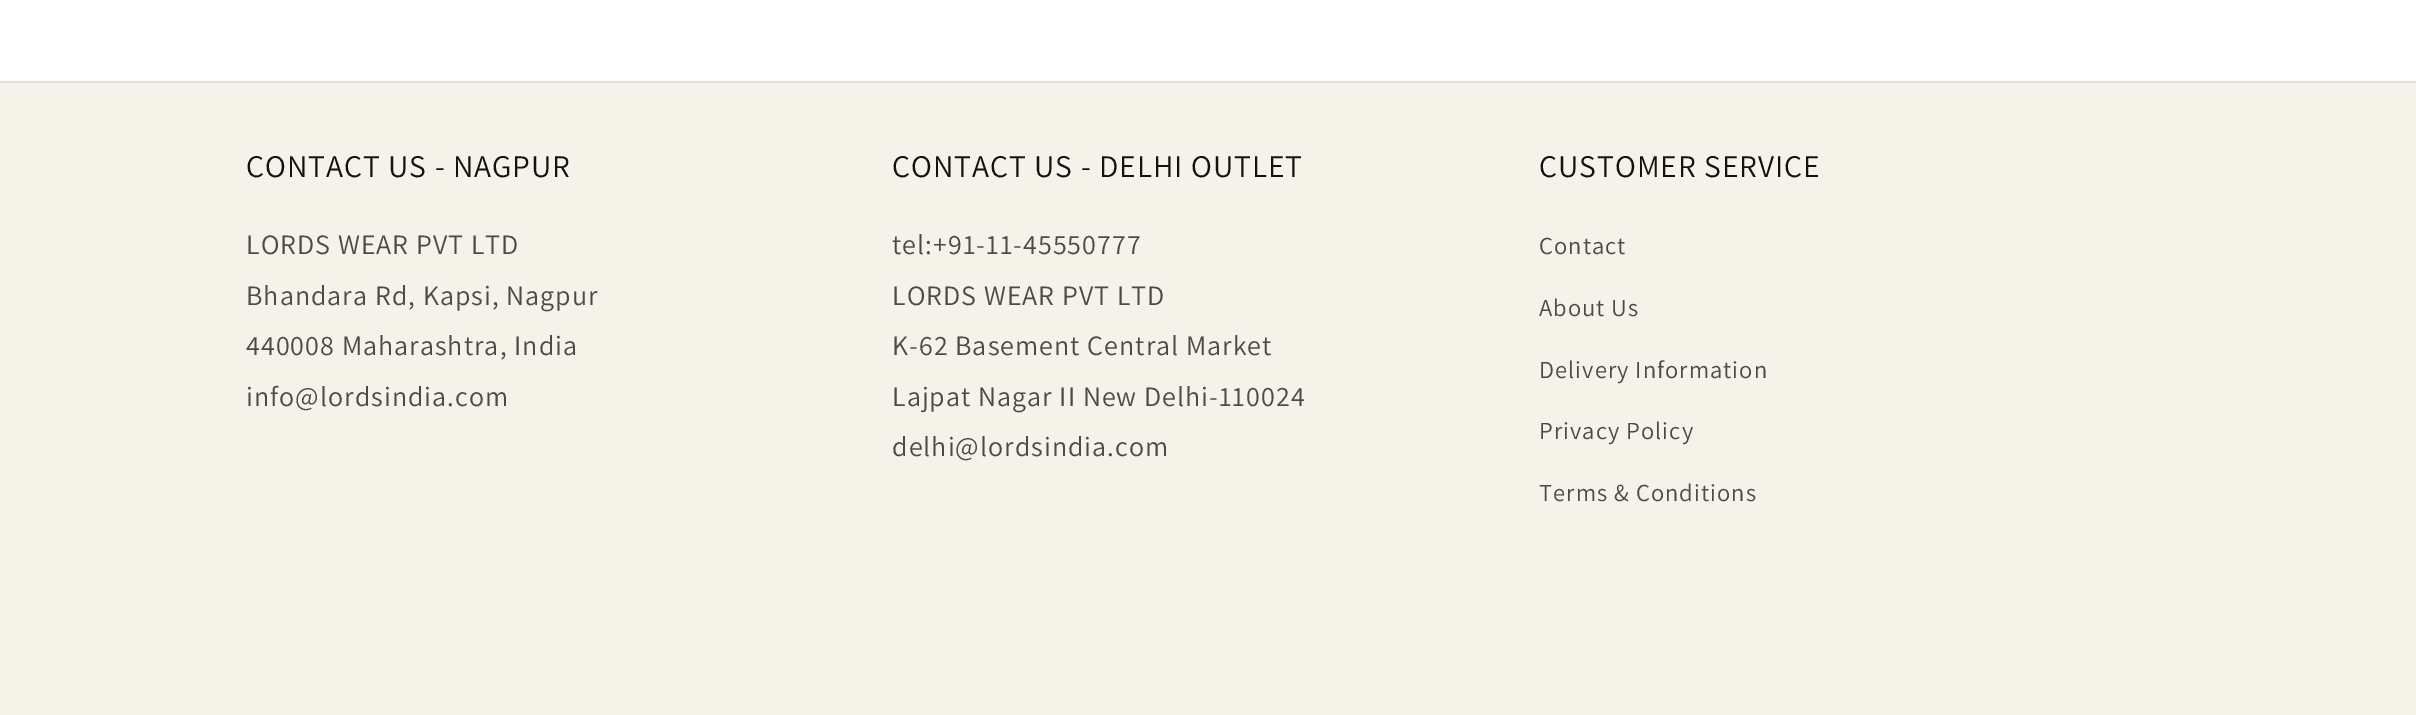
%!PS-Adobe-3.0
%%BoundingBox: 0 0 2416 715
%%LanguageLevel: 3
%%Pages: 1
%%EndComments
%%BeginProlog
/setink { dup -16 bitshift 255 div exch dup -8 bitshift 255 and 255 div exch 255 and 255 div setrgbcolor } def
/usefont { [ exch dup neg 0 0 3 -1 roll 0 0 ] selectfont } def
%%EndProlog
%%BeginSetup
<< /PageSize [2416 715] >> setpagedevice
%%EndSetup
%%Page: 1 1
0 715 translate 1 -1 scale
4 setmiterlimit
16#FFFFFF setink
0 0 2416 715 rectfill
16#F4F2E9 setink
0 83 2416 632 rectfill
16#E2E0D8 setink
0 81 2416 2 rectfill
/Assistant-Regular 31.5 usefont
16#121212 setink
246 177 moveto 1.05 0 (CONTACT US - NAGPUR) ashow
/Assistant-Regular 28 usefont
16#4B4A48 setink
246 254 moveto 1.05 0 (LORDS WEAR PVT LTD) ashow
246 305 moveto 1.05 0 (Bhandara Rd, Kapsi, Nagpur) ashow
246 355 moveto 1.05 0 (440008 Maharashtra, India) ashow
246 406 moveto 1.05 0 (info@lordsindia.com) ashow
/Assistant-Regular 31.5 usefont
16#121212 setink
892 177 moveto 1.05 0 (CONTACT US - DELHI OUTLET) ashow
/Assistant-Regular 28 usefont
16#4B4A48 setink
892 254 moveto 1.05 0 (tel:+91-11-45550777) ashow
892 305 moveto 1.05 0 (LORDS WEAR PVT LTD) ashow
892 355 moveto 1.05 0 (K-62 Basement Central Market) ashow
892 406 moveto 1.05 0 (Lajpat Nagar II New Delhi-110024) ashow
892 456 moveto 1.05 0 (delhi@lordsindia.com) ashow
/Assistant-Regular 31.5 usefont
16#121212 setink
1539 177 moveto 1.05 0 (CUSTOMER SERVICE) ashow
/Assistant-Regular 24.5 usefont
16#4B4A48 setink
1539 254 moveto 1.05 0 (Contact) ashow
1539 316 moveto 1.05 0 (About Us) ashow
1539 378 moveto 1.05 0 (Delivery Information) ashow
1539 439 moveto 1.05 0 (Privacy Policy) ashow
1539 501 moveto 1.05 0 (Terms & Conditions) ashow
showpage
%%EOF
